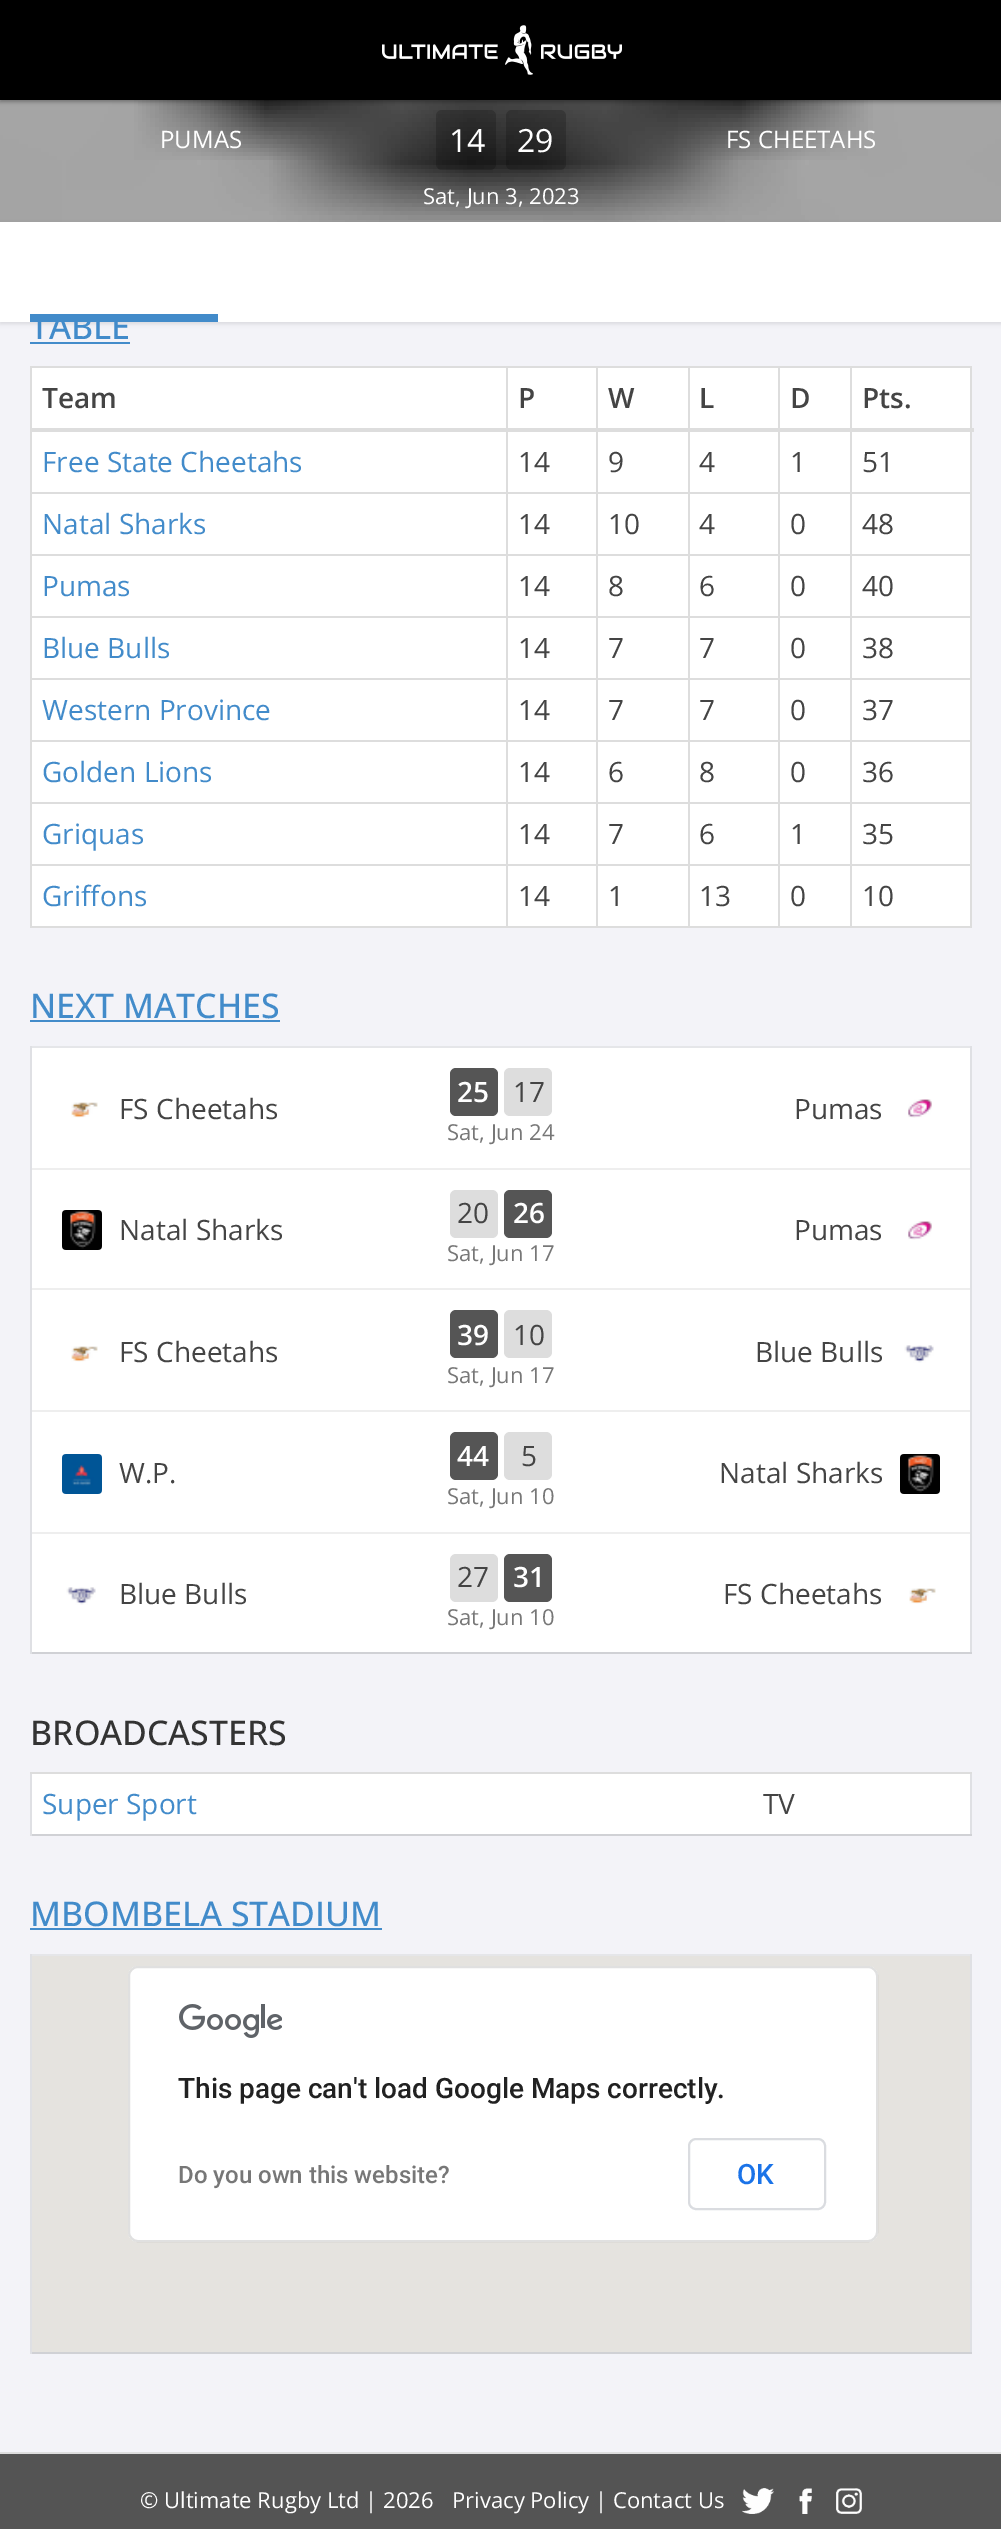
%!PS-Adobe-3.0
%%BoundingBox: 0 0 1001 2529
%%LanguageLevel: 3
%%Pages: 1
%%EndComments
%%BeginProlog
/setink { dup -16 bitshift 255 div exch dup -8 bitshift 255 and 255 div exch 255 and 255 div setrgbcolor } def
/usefont { [ exch dup neg 0 0 3 -1 roll 0 0 ] selectfont } def
/setalpha { dup .setfillconstantalpha .setstrokeconstantalpha } def
/rrect { 5 dict begin { /r /h /w /y /x } { exch def } forall
  x r add y moveto x w add y 2 copy h add r arct x w add y h add x 1 index r arct
  x y h add x y r arct x y 2 copy exch w add exch r arct closepath end } def
/softshadow { 12 dict begin { /a /b /q /h /w /y /x } { exch def } forall gsave /was 0 def
  9 -2 -9 { dup b mul 4 div /e exch def 1 sub .425 mul 2.718 exch exp 1 add a .99 .min exch div /now exch def
    1 1 now sub 1 was sub div sub setalpha /was now def
    w h .min e 2 mul add 0 gt { x e sub y e sub w e 2 mul add h e 2 mul add
      q e add b .6 mul add w h .min 2 div e add .min 0 .max rrect fill } if } for grestore end } def
/drawimage { 5 dict begin { /h /w /y /x /name } { exch def } forall
  gsave x y translate w h scale
  w h 8 [w 0 0 h 0 0] name (r) file false 3 colorimage grestore end } def
%%EndProlog
%%BeginSetup
<< /PageSize [1001 2529] /PageUsesTransparency true >> setpagedevice
%%EndSetup
%%Page: 1 1
0 .pushpdf14devicefilter
0 2529 translate 1 -1 scale
4 setmiterlimit
16#F3F3F8 setink
0 0 1001 2529 rectfill
16#222222 setink
0 100 1001 122 rectfill
(img2.raw) 0 100 1001 122 drawimage
16#000000 setink
0 2 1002 100 0 2 0.3 softshadow
0 0 1001 100 rectfill
(img1.raw) 382 25 240 50 drawimage
/OpenSans-Regular 24 usefont
16#FFFFFF setink
160 148 moveto (PUMAS) show
0.2 setalpha
16#000000 setink
436 110 60 60 6 rrect fill
/OpenSans-Regular 32 usefont
1 setalpha
16#FFFFFF setink
449 152 moveto (14) show
0.2 setalpha
16#000000 setink
506 110 60 60 6 rrect fill
1 setalpha
16#FFFFFF setink
517 152 moveto (29) show
/OpenSans-Regular 22 usefont
423 204 moveto (Sat, Jun 3, 2023) show
/OpenSans-Regular 24 usefont
726 148 moveto (FS CHEETAHS) show
16#000000 setink
0 224 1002 100 0 2 0.1 softshadow
/OpenSans-Medium 34 usefont
16#428BCA setink
30 339 moveto (TABLE) show
[
    [0 222 1001 100 16#FFFFFF]
    [30 314 188 8 16#428BCA]
    [30 342 100 2 16#428BCA]
    [32 368 938 558 16#FFFFFF]
    [30 366 942 2 16#DDDDDD]
    [970 366 2 562 16#DDDDDD]
    [30 926 942 2 16#DDDDDD]
    [30 366 2 562 16#DDDDDD]
] { aload pop setink rectfill } forall
/OpenSans-SemiBold 28 usefont
16#444444 setink
[
    [(Team) 42 408]
    [(P) 518 408]
    [(W) 608 408]
    [(L) 699 408]
    [(D) 790 408]
] { aload pop moveto show } forall
[
    [850 492 122 2 16#DDDDDD]
    [850 554 122 2 16#DDDDDD]
    [850 616 122 2 16#DDDDDD]
    [850 678 122 2 16#DDDDDD]
    [850 740 122 2 16#DDDDDD]
    [850 802 122 2 16#DDDDDD]
    [850 864 122 2 16#DDDDDD]
    [850 864 2 64 16#DDDDDD]
    [778 864 74 2 16#DDDDDD]
    [850 802 2 64 16#DDDDDD]
    [778 802 74 2 16#DDDDDD]
    [850 740 2 64 16#DDDDDD]
    [778 740 74 2 16#DDDDDD]
    [850 678 2 64 16#DDDDDD]
    [778 678 74 2 16#DDDDDD]
    [850 616 2 64 16#DDDDDD]
    [778 616 74 2 16#DDDDDD]
    [850 554 2 64 16#DDDDDD]
    [778 554 74 2 16#DDDDDD]
    [850 492 2 64 16#DDDDDD]
    [778 492 74 2 16#DDDDDD]
    [778 864 2 64 16#DDDDDD]
    [688 864 92 2 16#DDDDDD]
    [778 802 2 64 16#DDDDDD]
    [688 802 92 2 16#DDDDDD]
    [778 740 2 64 16#DDDDDD]
    [688 740 92 2 16#DDDDDD]
    [778 678 2 64 16#DDDDDD]
    [688 678 92 2 16#DDDDDD]
    [778 616 2 64 16#DDDDDD]
    [688 616 92 2 16#DDDDDD]
    [778 554 2 64 16#DDDDDD]
    [688 554 92 2 16#DDDDDD]
    [778 492 2 64 16#DDDDDD]
    [688 492 92 2 16#DDDDDD]
    [688 864 2 64 16#DDDDDD]
    [596 864 94 2 16#DDDDDD]
    [688 802 2 64 16#DDDDDD]
    [596 802 94 2 16#DDDDDD]
    [688 740 2 64 16#DDDDDD]
    [596 740 94 2 16#DDDDDD]
    [688 678 2 64 16#DDDDDD]
    [596 678 94 2 16#DDDDDD]
    [688 616 2 64 16#DDDDDD]
    [596 616 94 2 16#DDDDDD]
    [688 554 2 64 16#DDDDDD]
    [596 554 94 2 16#DDDDDD]
    [688 492 2 64 16#DDDDDD]
    [596 492 94 2 16#DDDDDD]
    [596 864 2 64 16#DDDDDD]
    [506 864 92 2 16#DDDDDD]
    [596 802 2 64 16#DDDDDD]
    [506 802 92 2 16#DDDDDD]
    [596 740 2 64 16#DDDDDD]
    [506 740 92 2 16#DDDDDD]
    [596 678 2 64 16#DDDDDD]
    [506 678 92 2 16#DDDDDD]
    [596 616 2 64 16#DDDDDD]
    [506 616 92 2 16#DDDDDD]
    [596 554 2 64 16#DDDDDD]
    [506 554 92 2 16#DDDDDD]
    [596 492 2 64 16#DDDDDD]
    [506 492 92 2 16#DDDDDD]
    [506 864 2 64 16#DDDDDD]
    [30 864 478 2 16#DDDDDD]
    [506 802 2 64 16#DDDDDD]
    [30 802 478 2 16#DDDDDD]
    [506 740 2 64 16#DDDDDD]
    [30 740 478 2 16#DDDDDD]
    [506 678 2 64 16#DDDDDD]
    [30 678 478 2 16#DDDDDD]
    [506 616 2 64 16#DDDDDD]
    [30 616 478 2 16#DDDDDD]
    [506 554 2 64 16#DDDDDD]
    [30 554 478 2 16#DDDDDD]
    [506 492 2 64 16#DDDDDD]
    [30 492 478 2 16#DDDDDD]
    [506 366 2 128 16#DDDDDD]
    [596 366 2 128 16#DDDDDD]
    [688 366 2 128 16#DDDDDD]
    [778 366 2 128 16#DDDDDD]
    [850 366 2 128 16#DDDDDD]
    [30 428 944 4 16#DDDDDD]
] { aload pop setink rectfill } forall
16#444444 setink
862 408 moveto (Pts.) show
/OpenSans-Regular 28 usefont
16#428BCA setink
42 472 moveto (Free State Cheetahs) show
16#444444 setink
[
    [(14) 518 472]
    [(9) 608 472]
    [(4) 699 472]
    [(1) 790 472]
    [(51) 862 472]
] { aload pop moveto show } forall
16#428BCA setink
42 534 moveto (Natal Sharks) show
16#444444 setink
[
    [(14) 518 534]
    [(10) 608 534]
    [(4) 699 534]
    [(0) 790 534]
    [(48) 862 534]
] { aload pop moveto show } forall
16#428BCA setink
42 596 moveto (Pumas) show
16#444444 setink
[
    [(14) 518 596]
    [(8) 608 596]
    [(6) 699 596]
    [(0) 790 596]
    [(40) 862 596]
] { aload pop moveto show } forall
16#428BCA setink
42 658 moveto (Blue Bulls) show
16#444444 setink
[
    [(14) 518 658]
    [(7) 608 658]
    [(7) 699 658]
    [(0) 790 658]
    [(38) 862 658]
] { aload pop moveto show } forall
16#428BCA setink
42 720 moveto (Western Province) show
16#444444 setink
[
    [(14) 518 720]
    [(7) 608 720]
    [(7) 699 720]
    [(0) 790 720]
    [(37) 862 720]
] { aload pop moveto show } forall
16#428BCA setink
42 782 moveto (Golden Lions) show
16#444444 setink
[
    [(14) 518 782]
    [(6) 608 782]
    [(8) 699 782]
    [(0) 790 782]
    [(36) 862 782]
] { aload pop moveto show } forall
16#428BCA setink
42 844 moveto (Griquas) show
16#444444 setink
[
    [(14) 518 844]
    [(7) 608 844]
    [(6) 699 844]
    [(1) 790 844]
    [(35) 862 844]
] { aload pop moveto show } forall
16#428BCA setink
42 906 moveto (Griffons) show
16#444444 setink
[
    [(14) 518 906]
    [(1) 608 906]
    [(13) 699 906]
    [(0) 790 906]
    [(10) 862 906]
] { aload pop moveto show } forall
/OpenSans-Medium 34 usefont
16#428BCA setink
30 1018 moveto (NEXT MATCHES) show
[
    [30 1020 250 2 16#428BCA]
    [30 1046 942 2 16#E5E6E9]
    [970 1046 2 608 16#DFE0E4]
    [30 1652 942 2 16#D0D1D5]
    [30 1046 2 608 16#DFE0E4]
    [32 1168 938 2 16#EEEEEE]
    [32 1048 938 120 16#FFFFFF]
] { aload pop setink rectfill } forall
(img3.raw) 71 1102 27 16 drawimage
/OpenSans-Regular 28 usefont
16#444444 setink
119 1119 moveto (FS Cheetahs) show
16#555555 setink
450 1068 48 48 6 rrect fill
/OpenSans-SemiBold 28 usefont
16#FFFFFF setink
457 1102 moveto (25) show
16#DDDDDD setink
504 1068 48 48 6 rrect fill
/OpenSans-Regular 28 usefont
16#444444 setink
513 1102 moveto (17) show
/OpenSans-Regular 22 usefont
16#777777 setink
447 1140 moveto (Sat, Jun 24) show
/OpenSans-Regular 28 usefont
16#444444 setink
794 1119 moveto (Pumas) show
(img4.raw) 908 1099 24 19 drawimage
16#EEEEEE setink
32 1288 938 2 rectfill
16#FFFFFF setink
32 1170 938 118 rectfill
(img5.raw) 62 1210 40 40 drawimage
16#444444 setink
119 1240 moveto (Natal Sharks) show
16#DDDDDD setink
450 1190 48 48 6 rrect fill
16#444444 setink
457 1223 moveto (20) show
16#555555 setink
504 1190 48 48 6 rrect fill
/OpenSans-SemiBold 28 usefont
16#FFFFFF setink
513 1223 moveto (26) show
/OpenSans-Regular 22 usefont
16#777777 setink
447 1261 moveto (Sat, Jun 17) show
/OpenSans-Regular 28 usefont
16#444444 setink
794 1240 moveto (Pumas) show
(img4.raw) 908 1221 24 19 drawimage
16#EEEEEE setink
32 1410 938 2 rectfill
16#FFFFFF setink
32 1290 938 120 rectfill
(img3.raw) 71 1346 27 16 drawimage
16#444444 setink
119 1362 moveto (FS Cheetahs) show
16#555555 setink
450 1310 48 48 6 rrect fill
/OpenSans-SemiBold 28 usefont
16#FFFFFF setink
457 1345 moveto (39) show
16#DDDDDD setink
504 1310 48 48 6 rrect fill
/OpenSans-Regular 28 usefont
16#444444 setink
513 1345 moveto (10) show
/OpenSans-Regular 22 usefont
16#777777 setink
447 1383 moveto (Sat, Jun 17) show
/OpenSans-Regular 28 usefont
16#444444 setink
755 1362 moveto (Blue Bulls) show
(img6.raw) 904 1345 30 18 drawimage
16#EEEEEE setink
32 1532 938 2 rectfill
16#FFFFFF setink
32 1412 938 120 rectfill
(img7.raw) 62 1454 40 40 drawimage
16#444444 setink
119 1483 moveto (W.P.) show
16#555555 setink
450 1432 48 48 6 rrect fill
/OpenSans-SemiBold 28 usefont
16#FFFFFF setink
457 1466 moveto (44) show
16#DDDDDD setink
504 1432 48 48 6 rrect fill
/OpenSans-Regular 28 usefont
16#444444 setink
521 1466 moveto (5) show
/OpenSans-Regular 22 usefont
16#777777 setink
447 1504 moveto (Sat, Jun 10) show
/OpenSans-Regular 28 usefont
16#444444 setink
719 1483 moveto (Natal Sharks) show
(img8.raw) 900 1454 40 40 drawimage
16#FFFFFF setink
32 1534 938 118 rectfill
(img9.raw) 66 1587 30 18 drawimage
16#444444 setink
119 1604 moveto (Blue Bulls) show
16#DDDDDD setink
450 1554 48 48 6 rrect fill
16#444444 setink
457 1587 moveto (27) show
16#555555 setink
504 1554 48 48 6 rrect fill
/OpenSans-SemiBold 28 usefont
16#FFFFFF setink
513 1587 moveto (31) show
/OpenSans-Regular 22 usefont
16#777777 setink
447 1625 moveto (Sat, Jun 10) show
/OpenSans-Regular 28 usefont
16#444444 setink
723 1604 moveto (FS Cheetahs) show
(img10.raw) 909 1588 27 16 drawimage
/OpenSans-Medium 34 usefont
16#333333 setink
30 1745 moveto (BROADCASTERS) show
[
    [32 1774 938 60 16#FFFFFF]
    [970 1772 2 64 16#DFE0E4]
    [30 1834 942 2 16#D0D1D5]
    [30 1772 2 64 16#DFE0E4]
] { aload pop setink rectfill } forall
/OpenSans-Regular 28 usefont
16#428BCA setink
42 1814 moveto (Super Sport) show
16#DDDDDD setink
30 1772 942 2 rectfill
16#444444 setink
763 1814 moveto (TV) show
/OpenSans-Medium 34 usefont
16#428BCA setink
30 1926 moveto (MBOMBELA STADIUM) show
[
    [30 1928 352 2 16#428BCA]
    [30 1954 942 2 16#E5E6E9]
    [970 1954 2 400 16#DFE0E4]
    [30 2352 942 2 16#D0D1D5]
    [30 1954 2 400 16#DFE0E4]
    [32 1956 938 396 16#E5E3DF]
] { aload pop setink rectfill } forall
16#FFFFFF setink
128 1966 750 276 10 rrect fill
0.12 setalpha
16#000000 setink
2 setlinewidth
129 1967 748 274 9 rrect stroke
1 setalpha
(img11.raw) 179 2004 103 34 drawimage
/Roboto-Medium 28 usefont
16#212121 setink
178 2098 moveto (This page can't load Google Maps correctly.) show
/Roboto-Medium 24 usefont
16#777777 setink
178 2183 moveto (Do you own this website?) show
16#DADCE0 setink
689 2139 136 70 7 rrect stroke
/Roboto-Medium 28 usefont
16#1A73E8 setink
737 2184 moveto (OK) show
16#545454 setink
0 2454 1001 75 rectfill
16#DDDDDD setink
0 2452 1001 2 rectfill
/OpenSans-Regular 22 usefont
16#FFFFFF setink
140 2508 moveto (© Ultimate Rugby Ltd | 2026) show
452 2508 moveto (Privacy Policy | Contact Us) show
(img12.raw) 742 2488 32 26 drawimage
(img13.raw) 799 2488 13 26 drawimage
(img14.raw) 836 2488 26 26 drawimage
.poppdf14devicefilter showpage
%%EOF
